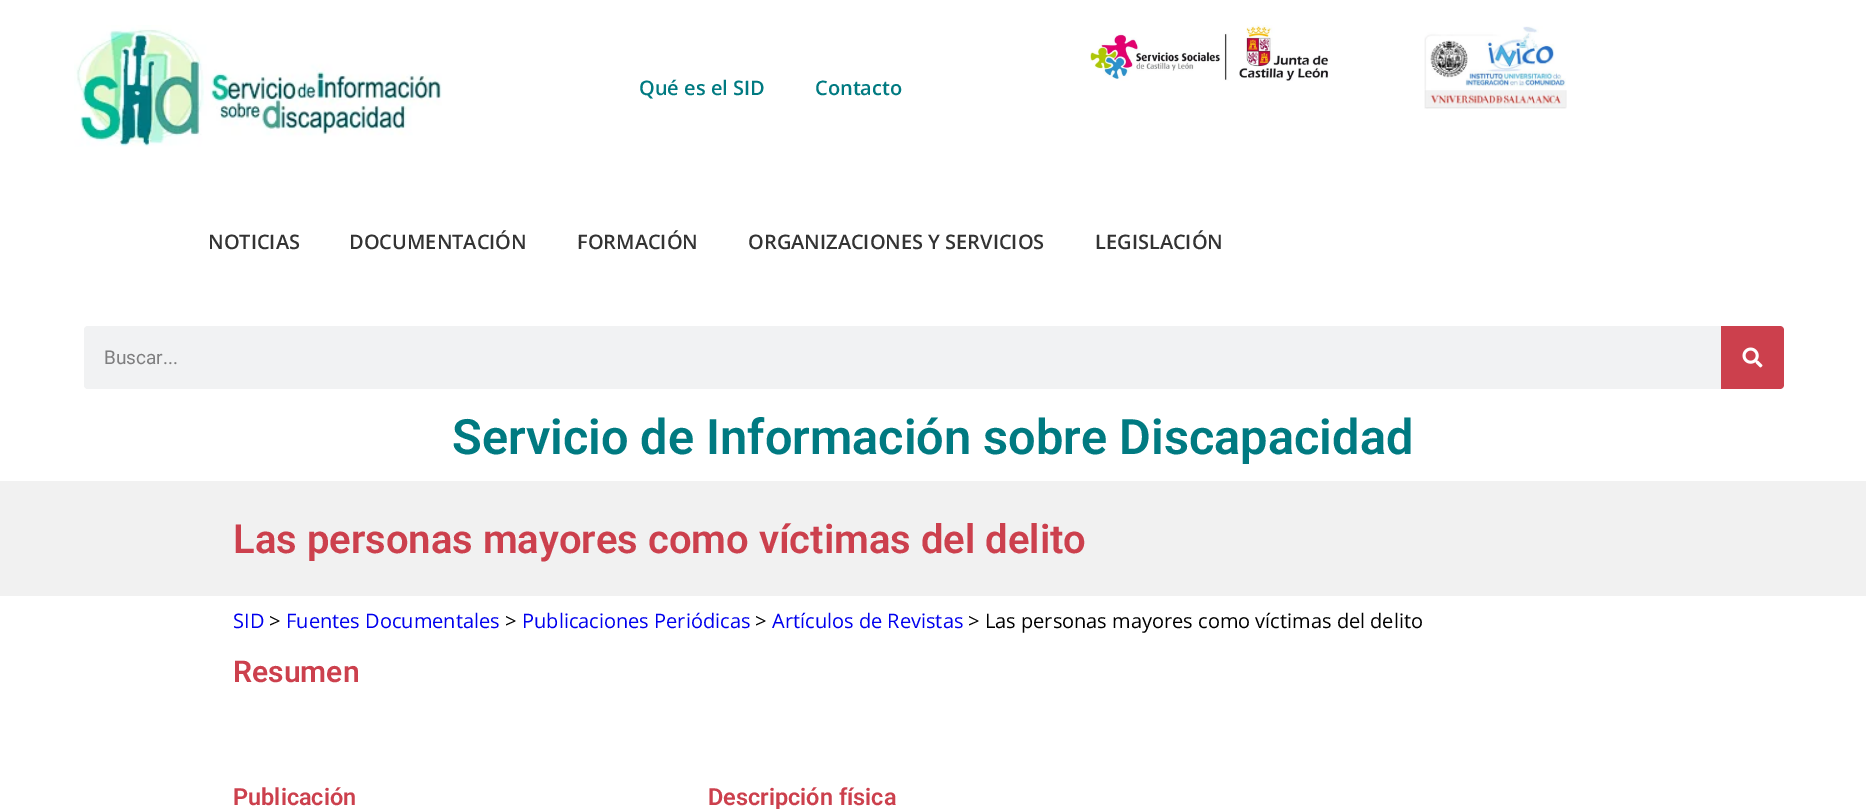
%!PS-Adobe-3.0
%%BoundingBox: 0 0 1866 809
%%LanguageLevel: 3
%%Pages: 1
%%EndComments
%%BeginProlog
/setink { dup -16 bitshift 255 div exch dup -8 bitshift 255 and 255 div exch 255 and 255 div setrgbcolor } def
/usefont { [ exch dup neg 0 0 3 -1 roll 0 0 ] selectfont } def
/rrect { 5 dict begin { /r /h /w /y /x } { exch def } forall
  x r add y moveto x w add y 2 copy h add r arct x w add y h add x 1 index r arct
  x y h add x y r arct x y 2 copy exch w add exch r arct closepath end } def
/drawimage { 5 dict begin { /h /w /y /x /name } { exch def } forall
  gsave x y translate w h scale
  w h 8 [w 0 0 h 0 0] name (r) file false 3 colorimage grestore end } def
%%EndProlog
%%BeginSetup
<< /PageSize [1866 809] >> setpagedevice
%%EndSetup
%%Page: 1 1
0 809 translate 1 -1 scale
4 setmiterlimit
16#FFFFFF setink
0 0 1866 809 rectfill
(img1.raw) 74 25 368 122 drawimage
/OpenSans-SemiBold 20 usefont
16#007A81 setink
639 95 moveto (Qué es el SID) show
815 95 moveto (Contacto) show
(img2.raw) 1090 25 239 56 drawimage
(img3.raw) 1424 26 143 83 drawimage
16#333333 setink
[
    [(NOTICIAS) 208 249]
    [(DOCUMENTACIÓN) 349 249]
    [(FORMACIÓN) 577 249]
    [(ORGANIZACIONES Y SERVICIOS) 748 249]
    [(LEGISLACIÓN) 1095 249]
] { aload pop moveto show } forall
16#F1F2F3 setink
84 326 1700 63 4 rrect fill
/Roboto-Regular 19 usefont
16#7F7F80 setink
104 364 moveto (Buscar...) show
16#CC404D setink
1721 326 moveto 1780 326 lineto 1782 326 1784 328 1784 330 curveto 1784 385 lineto 1784 387 1782 389 1780 389 curveto 1721 389 lineto closepath fill
(img4.raw) 1742 347 21 21 drawimage
/Roboto-SemiBold 48.75 usefont
16#007A81 setink
452 454 moveto (Servicio de Información sobre Discapacidad) show
16#F1F1F1 setink
0 481 1866 115 rectfill
/Roboto-SemiBold 40 usefont
16#CC404D setink
233 553 moveto (Las personas mayores como víctimas del delito) show
/OpenSans-Regular 20 usefont
16#0000EE setink
233 628 moveto (SID) show
16#000000 setink
269 628 moveto (>) show
16#0000EE setink
286 628 moveto (Fuentes Documentales) show
16#000000 setink
505 628 moveto (>) show
16#0000EE setink
522 628 moveto (Publicaciones Periódicas) show
16#000000 setink
755 628 moveto (>) show
16#0000EE setink
772 628 moveto (Artículos de Revistas) show
16#000000 setink
968 628 moveto (> Las personas mayores como víctimas del delito) show
/Roboto-SemiBold 30 usefont
16#CC404D setink
233 682 moveto (Resumen) show
/Roboto-SemiBold 23.5 usefont
233 805 moveto (Publicación) show
708 805 moveto (Descripción física) show
showpage
%%EOF
